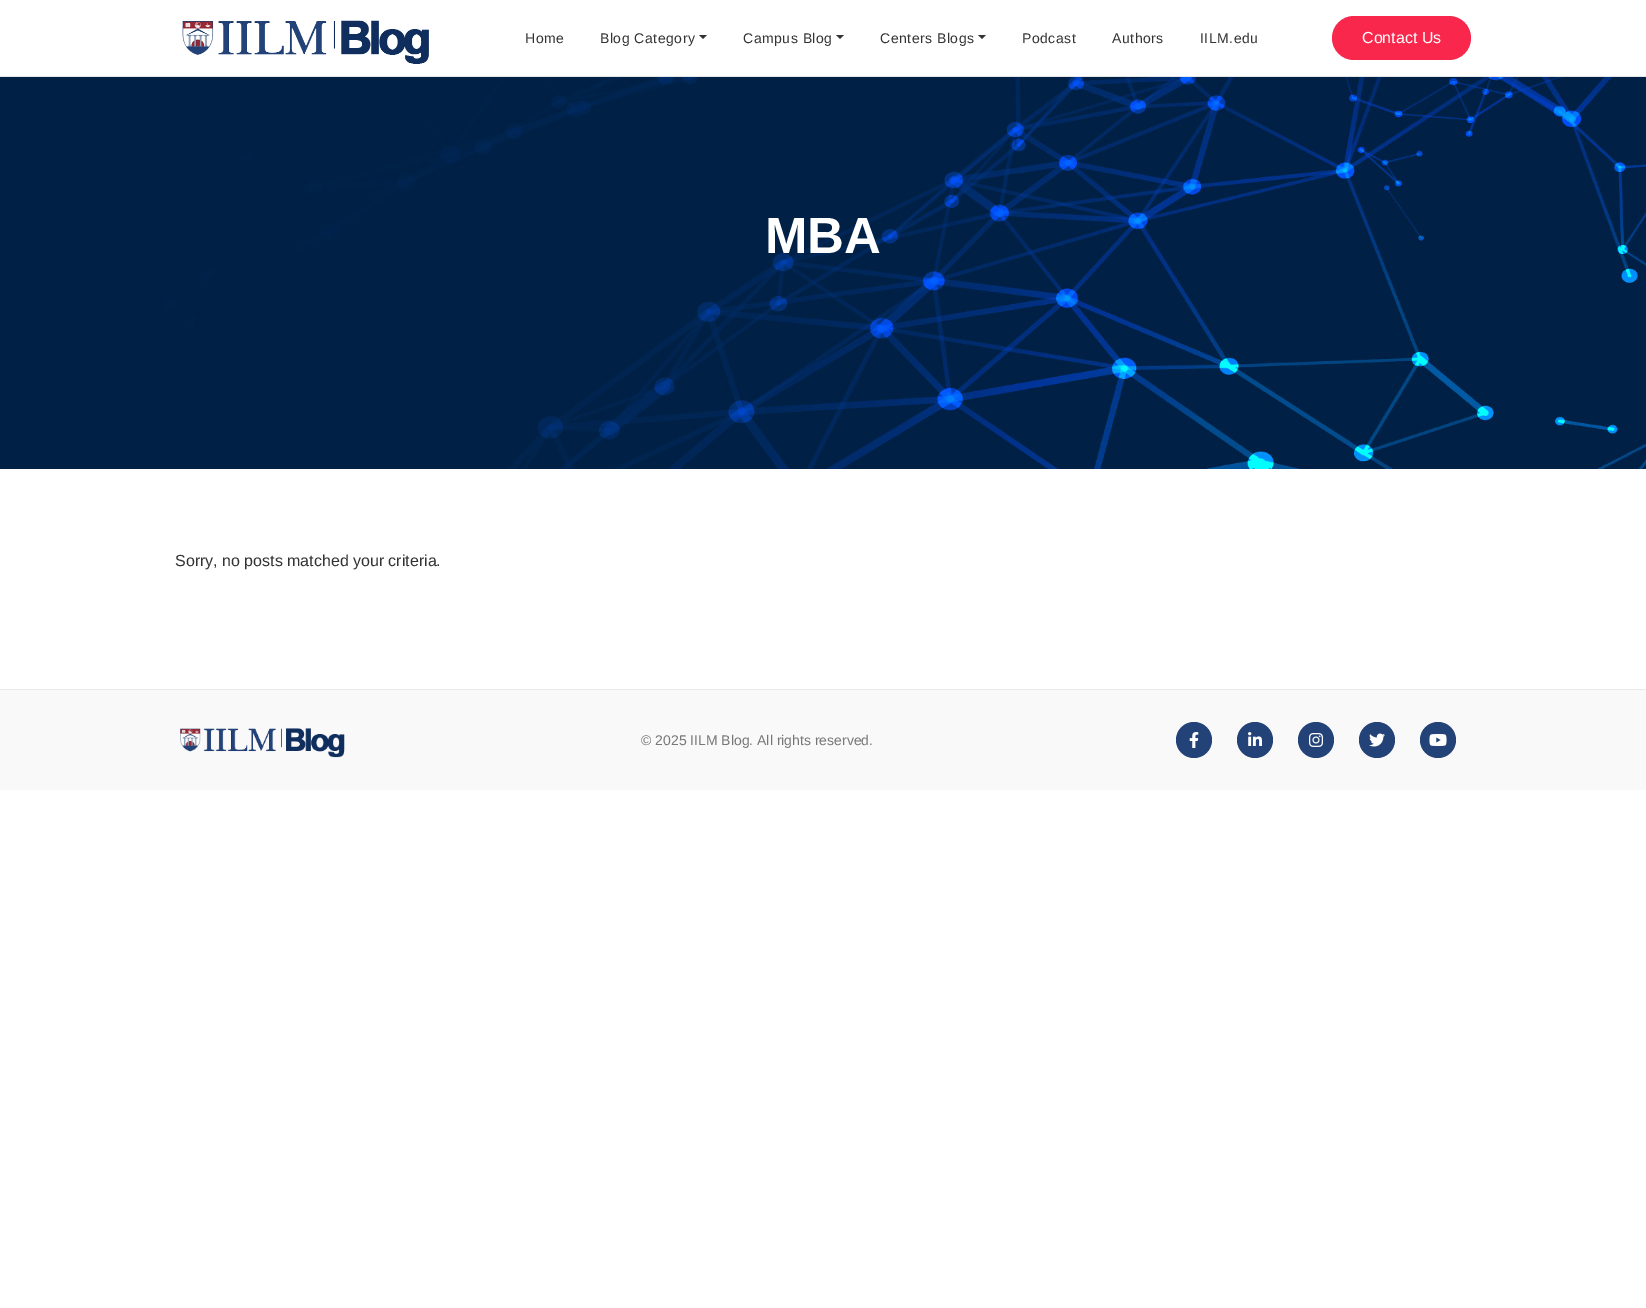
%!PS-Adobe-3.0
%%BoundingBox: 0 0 1646 1308
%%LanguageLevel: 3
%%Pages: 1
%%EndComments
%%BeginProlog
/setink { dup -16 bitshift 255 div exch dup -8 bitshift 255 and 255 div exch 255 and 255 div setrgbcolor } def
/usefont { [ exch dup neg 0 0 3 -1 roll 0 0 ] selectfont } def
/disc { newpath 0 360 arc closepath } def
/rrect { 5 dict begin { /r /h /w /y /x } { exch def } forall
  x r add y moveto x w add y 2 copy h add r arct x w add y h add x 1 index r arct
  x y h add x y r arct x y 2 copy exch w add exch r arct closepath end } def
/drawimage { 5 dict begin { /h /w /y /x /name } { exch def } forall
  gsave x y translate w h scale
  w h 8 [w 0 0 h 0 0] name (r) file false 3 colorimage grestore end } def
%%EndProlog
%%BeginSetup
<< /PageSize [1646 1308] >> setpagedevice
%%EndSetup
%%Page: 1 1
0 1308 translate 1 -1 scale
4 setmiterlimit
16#FFFFFF setink
0 0 1646 1308 rectfill
16#E6E6E6 setink
0 76 1646 1 rectfill
(img1.raw) 182 20 247 44 drawimage
/LiberationSans-Regular 14 usefont
16#333333 setink
525 43 moveto 0.5 0 (Home) ashow
600 43 moveto 0.5 0 (Blog Category) ashow
699 35 moveto 707 35 lineto 703 39 lineto closepath fill
743 43 moveto 0.5 0 (Campus Blog) ashow
836 35 moveto 844 35 lineto 840 39 lineto closepath fill
880 43 moveto 0.5 0 (Centers Blogs) ashow
978 35 moveto 986 35 lineto 982 39 lineto closepath fill
1022 43 moveto 0.5 0 (Podcast) ashow
1112 43 moveto 0.5 0 (Authors) ashow
1200 43 moveto 0.5 0 (IILM.edu) ashow
16#F8274B setink
1332 16 139 44 22 rrect fill
/LiberationSans-Regular 16 usefont
16#FFFFFF setink
1362 43 moveto (Contact Us) show
(img2.raw) 0 77 1646 392 drawimage
/LiberationSans-Bold 51 usefont
765 253 moveto (MBA) show
/LiberationSans-Regular 16 usefont
16#333333 setink
175 566 moveto (Sorry, no posts matched your criteria.) show
16#F9F9F9 setink
0 690 1646 100 rectfill
16#EAEAEA setink
0 689 1646 1 rectfill
(img3.raw) 180 728 165 30 drawimage
/LiberationSans-Regular 14 usefont
16#777777 setink
641 745 moveto (© 2025 IILM Blog. All rights reserved.) show
16#234278 setink
1194 740 18 disc fill
(img4.raw) 1189 732 10 16 drawimage
1255 740 18 disc fill
(img5.raw) 1248 732 14 14 drawimage
1316 740 18 disc fill
(img6.raw) 1309 733 14 14 drawimage
1377 740 18 disc fill
(img7.raw) 1369 733 16 14 drawimage
1438 740 18 disc fill
(img8.raw) 1429 734 18 12 drawimage
showpage
%%EOF
